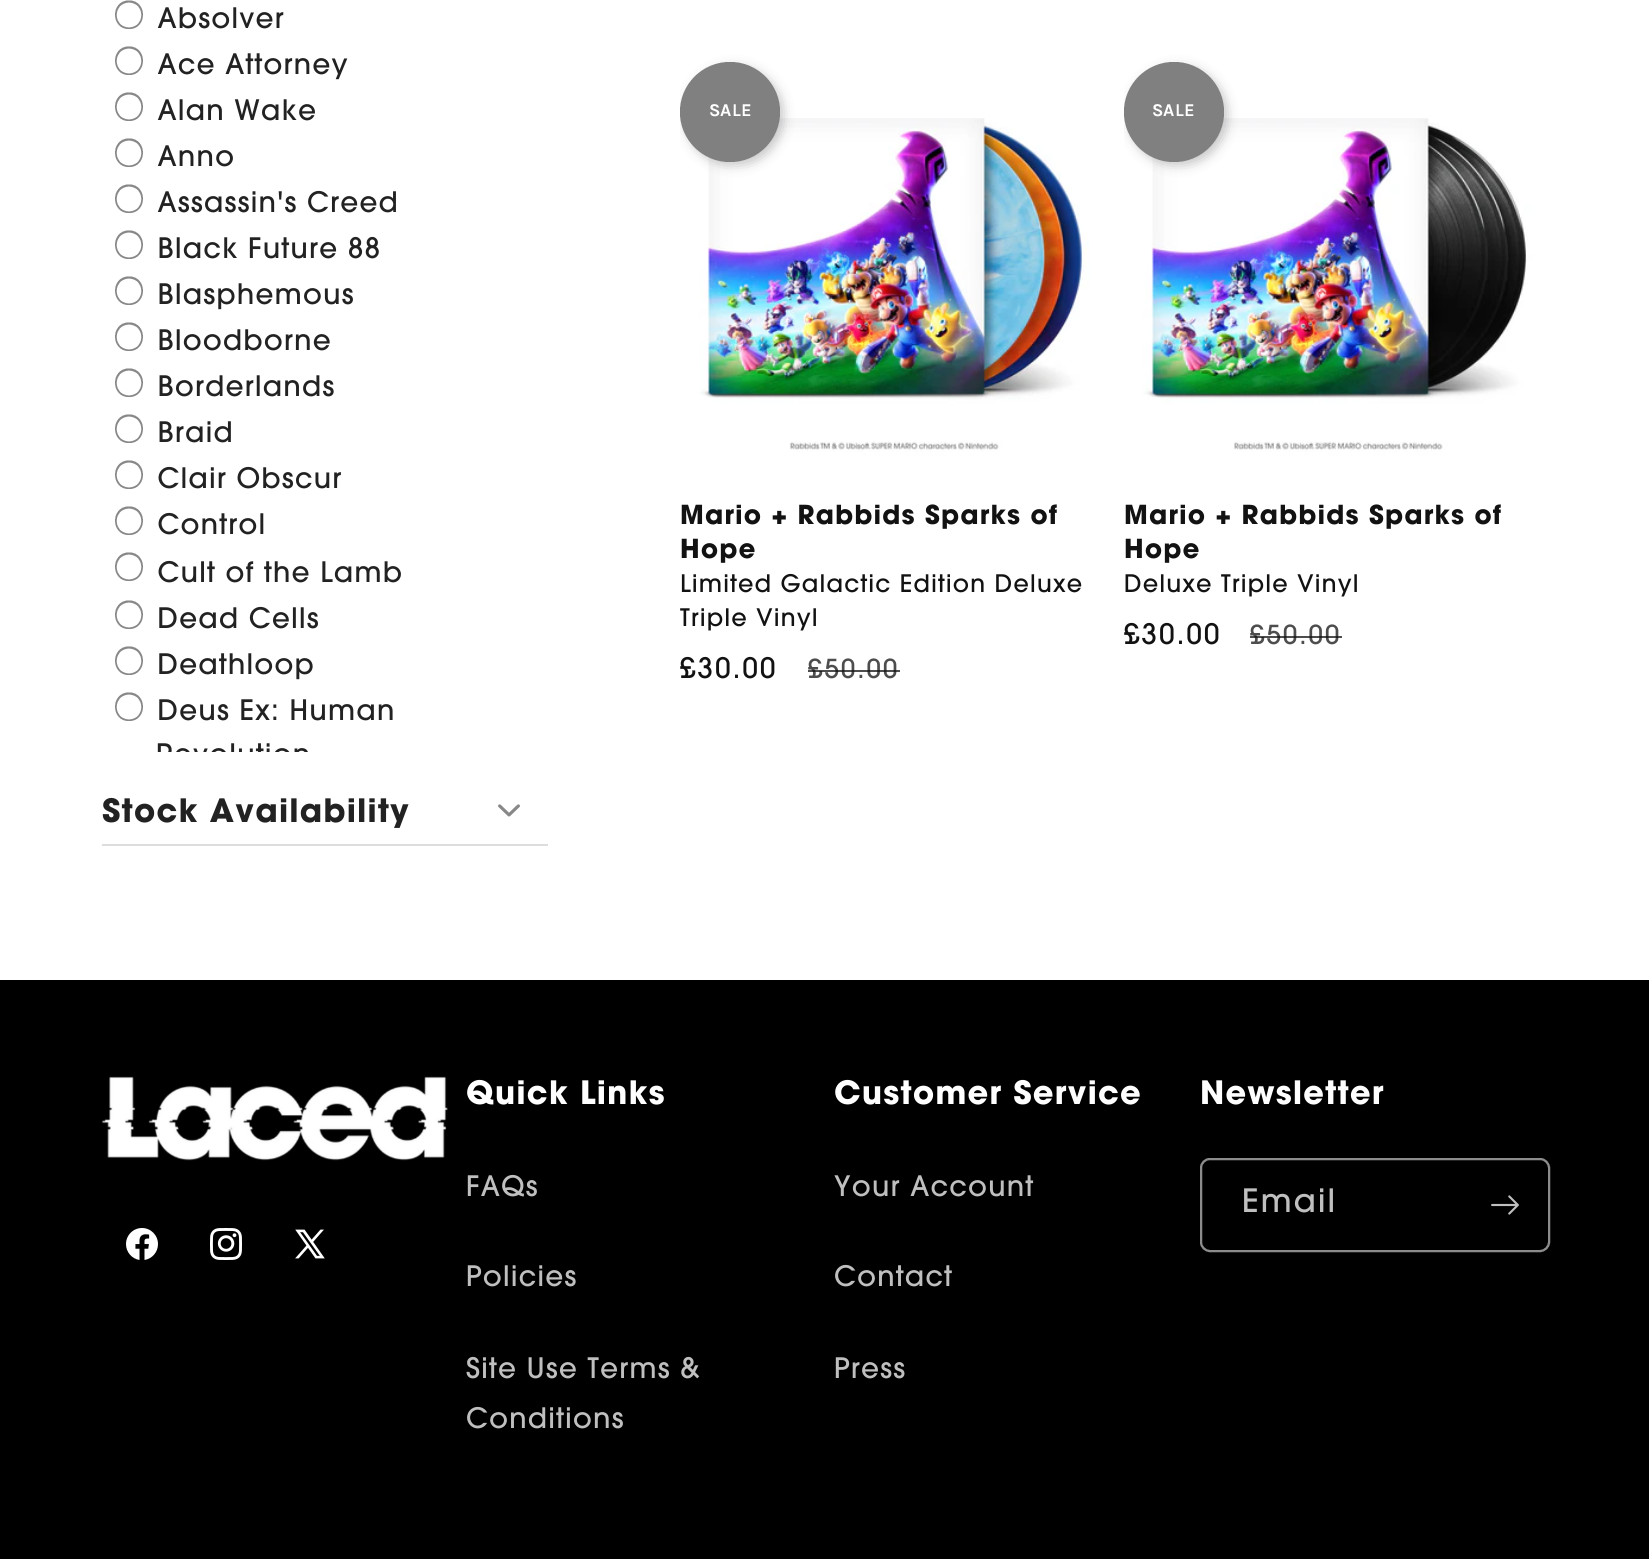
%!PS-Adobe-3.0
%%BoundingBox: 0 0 1649 1559
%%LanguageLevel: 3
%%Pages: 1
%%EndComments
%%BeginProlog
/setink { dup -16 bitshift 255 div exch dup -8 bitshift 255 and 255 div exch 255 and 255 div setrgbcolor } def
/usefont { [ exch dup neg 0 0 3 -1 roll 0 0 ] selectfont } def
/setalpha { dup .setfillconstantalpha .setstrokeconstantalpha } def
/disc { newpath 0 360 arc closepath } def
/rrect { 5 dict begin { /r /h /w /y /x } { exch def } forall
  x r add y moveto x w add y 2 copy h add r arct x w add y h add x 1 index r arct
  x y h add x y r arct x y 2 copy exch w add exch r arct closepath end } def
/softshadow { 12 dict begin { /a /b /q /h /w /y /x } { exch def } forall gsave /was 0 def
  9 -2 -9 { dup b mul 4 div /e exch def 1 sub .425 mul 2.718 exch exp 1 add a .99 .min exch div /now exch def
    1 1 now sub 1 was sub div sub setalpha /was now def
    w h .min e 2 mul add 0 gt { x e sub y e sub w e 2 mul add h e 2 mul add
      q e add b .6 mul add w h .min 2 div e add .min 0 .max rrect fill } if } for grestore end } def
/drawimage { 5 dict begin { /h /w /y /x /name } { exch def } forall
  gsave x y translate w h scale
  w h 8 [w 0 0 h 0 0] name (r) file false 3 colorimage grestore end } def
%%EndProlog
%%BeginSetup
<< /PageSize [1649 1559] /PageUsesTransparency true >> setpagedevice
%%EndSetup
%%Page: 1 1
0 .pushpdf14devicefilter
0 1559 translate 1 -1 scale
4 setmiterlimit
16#FFFFFF setink
0 0 1649 1559 rectfill
16#888888 setink
129 29 moveto 110.5 29 110.5 0.5 129 0.5 curveto 147.5 0.5 147.5 29 129 29 curveto closepath 129 27.5 moveto 145.5 27.5 145.5 2.5 129 2.5 curveto 112.5 2.5 112.5 27.5 129 27.5 curveto closepath fill
(img1.raw) 157 7 127 22 drawimage
129 75 moveto 110.5 75 110.5 46.5 129 46.5 curveto 147.5 46.5 147.5 75 129 75 curveto closepath 129 73.5 moveto 145.5 73.5 145.5 48.5 129 48.5 curveto 112.5 48.5 112.5 73.5 129 73.5 curveto closepath fill
(img2.raw) 157 53 191 27 drawimage
129 121 moveto 110.5 121 110.5 92.5 129 92.5 curveto 147.5 92.5 147.5 121 129 121 curveto closepath 129 119.5 moveto 145.5 119.5 145.5 94.5 129 94.5 curveto 112.5 94.5 112.5 119.5 129 119.5 curveto closepath fill
(img3.raw) 157 99 158 22 drawimage
129 167 moveto 110.5 167 110.5 138.5 129 138.5 curveto 147.5 138.5 147.5 167 129 167 curveto closepath 129 165.5 moveto 145.5 165.5 145.5 140.5 129 140.5 curveto 112.5 140.5 112.5 165.5 129 165.5 curveto closepath fill
(img4.raw) 157 145 76 22 drawimage
129 213 moveto 110.5 213 110.5 184.5 129 184.5 curveto 147.5 184.5 147.5 213 129 213 curveto closepath 129 211.5 moveto 145.5 211.5 145.5 186.5 129 186.5 curveto 112.5 186.5 112.5 211.5 129 211.5 curveto closepath fill
(img5.raw) 157 190 239 23 drawimage
129 259 moveto 110.5 259 110.5 230.5 129 230.5 curveto 147.5 230.5 147.5 259 129 259 curveto closepath 129 257.5 moveto 145.5 257.5 145.5 232.5 129 232.5 curveto 112.5 232.5 112.5 257.5 129 257.5 curveto closepath fill
(img6.raw) 159 236 220 23 drawimage
129 305 moveto 110.5 305 110.5 276.5 129 276.5 curveto 147.5 276.5 147.5 305 129 305 curveto closepath 129 303.5 moveto 145.5 303.5 145.5 278.5 129 278.5 curveto 112.5 278.5 112.5 303.5 129 303.5 curveto closepath fill
(img7.raw) 159 283 194 27 drawimage
129 351 moveto 110.5 351 110.5 322.5 129 322.5 curveto 147.5 322.5 147.5 351 129 351 curveto closepath 129 349.5 moveto 145.5 349.5 145.5 324.5 129 324.5 curveto 112.5 324.5 112.5 349.5 129 349.5 curveto closepath fill
(img8.raw) 159 329 171 22 drawimage
129 397 moveto 110.5 397 110.5 368.5 129 368.5 curveto 147.5 368.5 147.5 397 129 397 curveto closepath 129 395.5 moveto 145.5 395.5 145.5 370.5 129 370.5 curveto 112.5 370.5 112.5 395.5 129 395.5 curveto closepath fill
(img9.raw) 159 375 175 22 drawimage
129 443 moveto 110.5 443 110.5 414.5 129 414.5 curveto 147.5 414.5 147.5 443 129 443 curveto closepath 129 441.5 moveto 145.5 441.5 145.5 416.5 129 416.5 curveto 112.5 416.5 112.5 441.5 129 441.5 curveto closepath fill
(img10.raw) 159 421 72 22 drawimage
129 489 moveto 110.5 489 110.5 460.5 129 460.5 curveto 147.5 460.5 147.5 489 129 489 curveto closepath 129 487.5 moveto 145.5 487.5 145.5 462.5 129 462.5 curveto 112.5 462.5 112.5 487.5 129 487.5 curveto closepath fill
(img11.raw) 158 466 183 23 drawimage
129 535 moveto 110.5 535 110.5 506.5 129 506.5 curveto 147.5 506.5 147.5 535 129 535 curveto closepath 129 533.5 moveto 145.5 533.5 145.5 508.5 129 508.5 curveto 112.5 508.5 112.5 533.5 129 533.5 curveto closepath fill
(img12.raw) 158 512 106 23 drawimage
129 581 moveto 110.5 581 110.5 552.5 129 552.5 curveto 147.5 552.5 147.5 581 129 581 curveto closepath 129 579.5 moveto 145.5 579.5 145.5 554.5 129 554.5 curveto 112.5 554.5 112.5 579.5 129 579.5 curveto closepath fill
(img13.raw) 158 560 243 23 drawimage
129 629 moveto 110.5 629 110.5 600.5 129 600.5 curveto 147.5 600.5 147.5 629 129 629 curveto closepath 129 627.5 moveto 145.5 627.5 145.5 602.5 129 602.5 curveto 112.5 602.5 112.5 627.5 129 627.5 curveto closepath fill
(img14.raw) 159 606 159 23 drawimage
129 675 moveto 110.5 675 110.5 646.5 129 646.5 curveto 147.5 646.5 147.5 675 129 675 curveto closepath 129 673.5 moveto 145.5 673.5 145.5 648.5 129 648.5 curveto 112.5 648.5 112.5 673.5 129 673.5 curveto closepath fill
(img15.raw) 159 653 154 27 drawimage
129 721 moveto 110.5 721 110.5 692.5 129 692.5 curveto 147.5 692.5 147.5 721 129 721 curveto closepath 129 719.5 moveto 145.5 719.5 145.5 694.5 129 694.5 curveto 112.5 694.5 112.5 719.5 129 719.5 curveto closepath fill
(img16.raw) 159 699 234 22 drawimage
(img17.raw) 157 743 151 9 drawimage
16#DDDDDD setink
102 844 446 2 rectfill
(img18.raw) 102 797 307 31 drawimage
(img19.raw) 498 804 22 13 drawimage
(img20.raw) 680 42 428 426 drawimage
gsave
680 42 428 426 rectclip
16#000000 setink
684 66 100 100 50 5 0.2 softshadow
grestore
16#808080 setink
730 112 50 disc fill
/Karla-Bold 18 usefont
16#FFFFFF setink
709 116 moveto (SALE) show
(img21.raw) 681 504 376 25 drawimage
(img22.raw) 681 538 74 25 drawimage
(img23.raw) 681 573 401 20 drawimage
(img24.raw) 680 608 136 23 drawimage
(img25.raw) 680 656 95 23 drawimage
(img26.raw) 808 658 89 21 drawimage
0.75 setalpha
16#121212 setink
808 670 92 2 rectfill
1 setalpha
(img27.raw) 1124 42 426 426 drawimage
gsave
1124 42 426 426 rectclip
16#000000 setink
1128 66 100 100 50 5 0.2 softshadow
grestore
16#808080 setink
1174 112 50 disc fill
16#FFFFFF setink
1152 116 moveto (SALE) show
(img21.raw) 1125 504 376 25 drawimage
(img22.raw) 1125 538 74 25 drawimage
(img28.raw) 1125 574 232 23 drawimage
(img25.raw) 1124 622 95 23 drawimage
(img26.raw) 1250 624 89 21 drawimage
0.75 setalpha
16#121212 setink
1250 636 92 2 rectfill
1 setalpha
16#000000 setink
0 980 1649 579 rectfill
(img29.raw) 101 1076 347 85 drawimage
(img30.raw) 126 1228 32 32 drawimage
(img31.raw) 210 1228 32 32 drawimage
(img32.raw) 295 1229 30 30 drawimage
(img33.raw) 467 1079 197 26 drawimage
(img34.raw) 467 1174 70 23 drawimage
(img35.raw) 467 1265 109 22 drawimage
(img36.raw) 466 1356 234 23 drawimage
(img37.raw) 467 1406 156 23 drawimage
(img38.raw) 835 1079 305 26 drawimage
(img39.raw) 834 1175 200 22 drawimage
(img40.raw) 835 1264 117 23 drawimage
(img41.raw) 835 1357 70 22 drawimage
(img42.raw) 1202 1080 182 25 drawimage
(img43.raw) 1244 1188 89 25 drawimage
16#8C8C8C setink
2 setlinewidth
1201 1159 348 92 9 rrect stroke
(img44.raw) 1491 1195 28 20 drawimage
.poppdf14devicefilter showpage
%%EOF
